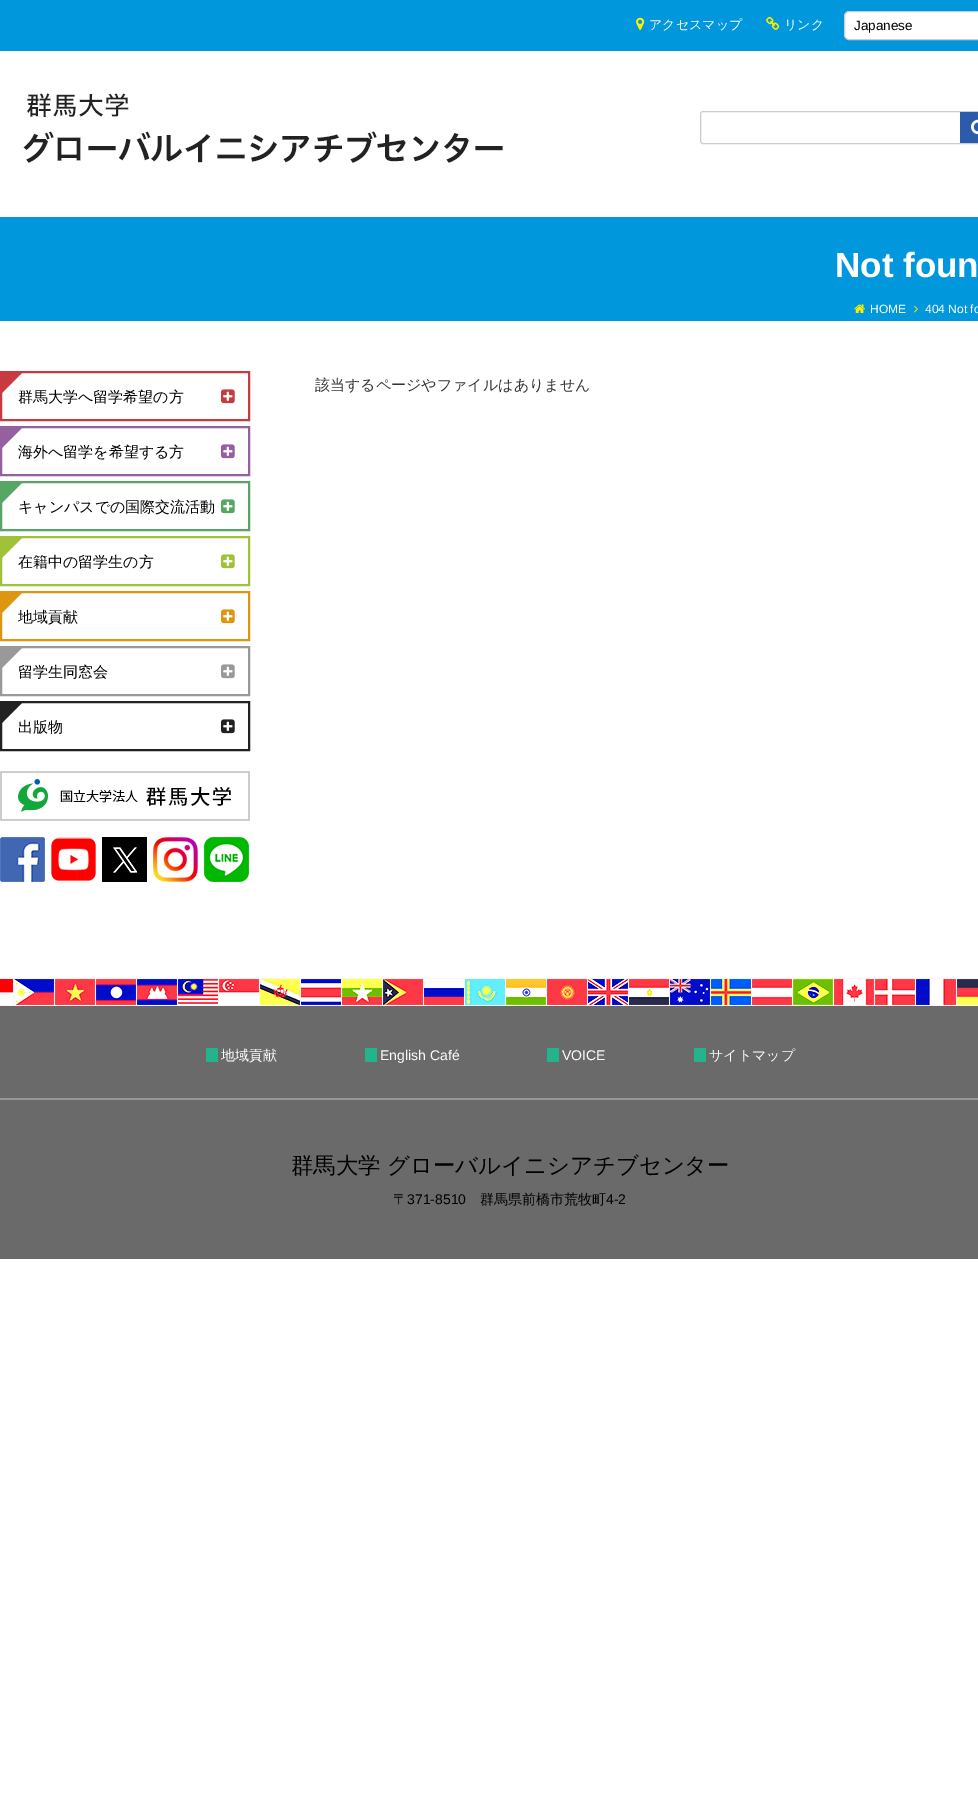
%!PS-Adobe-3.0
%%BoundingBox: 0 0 978 1798
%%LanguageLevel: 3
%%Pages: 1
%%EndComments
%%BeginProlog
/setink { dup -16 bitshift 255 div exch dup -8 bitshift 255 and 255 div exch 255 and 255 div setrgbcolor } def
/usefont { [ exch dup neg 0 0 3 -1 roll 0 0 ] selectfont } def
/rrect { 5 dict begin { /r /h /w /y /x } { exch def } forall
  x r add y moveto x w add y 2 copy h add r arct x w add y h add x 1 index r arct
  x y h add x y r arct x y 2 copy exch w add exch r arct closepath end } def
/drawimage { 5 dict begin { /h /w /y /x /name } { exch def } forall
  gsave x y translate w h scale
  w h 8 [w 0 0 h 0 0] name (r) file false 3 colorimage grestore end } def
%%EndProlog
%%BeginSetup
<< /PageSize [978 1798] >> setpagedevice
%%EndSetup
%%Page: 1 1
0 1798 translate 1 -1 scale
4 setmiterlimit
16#FFFFFF setink
0 0 978 1798 rectfill
16#0097DC setink
0 0 978 51 rectfill
(img1.raw) 636 17 9 13 drawimage
/WenQuanYiZenHei-Medium 13 usefont
16#FFFFFF setink
649 29 moveto (アクセスマップ) show
(img2.raw) 766 16 14 14 drawimage
784 29 moveto (リンク) show
844.5 11.5 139 28 4.5 rrect gsave fill grestore
16#CCCCCC setink
stroke
/LiberationSans-Regular 13.5 usefont
16#000000 setink
854 30 moveto (Japanese) show
(img3.raw) 23 93 480 70 drawimage
16#CCCCCC setink
700.5 111.5 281 32 2.5 rrect stroke
16#2B5CAB setink
960 112 18 31 rectfill
(img4.raw) 971 119 7 16 drawimage
16#0097DC setink
0 217 978 104 rectfill
/LiberationSans-Bold 35 usefont
16#FFFFFF setink
835 277 moveto (Not foun) show
(img5.raw) 854 304 11 9 drawimage
/LiberationSans-Regular 12 usefont
870 313 moveto (HOME) show
(img6.raw) 914 305 4 8 drawimage
925 313 moveto (404 Not fo) show
/WenQuanYiZenHei-Medium 15 usefont
16#333333 setink
315 390 moveto (該当するページやファイルはありません) show
16#C93A40 setink
2 setlinewidth
1 372 248 48 rectstroke
16#000000 setink
18 402 moveto (群馬大学へ留学希望の方) show
16#C93A40 setink
2 373 moveto 22 373 lineto 2 393 lineto closepath fill
(img7.raw) 221 389 14 15 drawimage
16#9460A0 setink
1 427 248 48 rectstroke
16#000000 setink
18 457 moveto (海外へ留学を希望する方) show
16#9460A0 setink
2 428 moveto 22 428 lineto 2 448 lineto closepath fill
(img8.raw) 221 444 14 15 drawimage
16#56A764 setink
1 482 248 48 rectstroke
16#000000 setink
18 512 moveto (キャンパスでの国際交流活動) show
16#56A764 setink
2 483 moveto 22 483 lineto 2 503 lineto closepath fill
(img9.raw) 221 499 14 15 drawimage
16#A0C238 setink
1 537 248 48 rectstroke
16#000000 setink
18 567 moveto (在籍中の留学生の方) show
16#A0C238 setink
2 538 moveto 22 538 lineto 2 558 lineto closepath fill
(img10.raw) 221 554 14 15 drawimage
16#DE9610 setink
1 592 248 48 rectstroke
16#000000 setink
18 622 moveto (地域貢献) show
16#DE9610 setink
2 593 moveto 22 593 lineto 2 613 lineto closepath fill
(img11.raw) 221 609 14 15 drawimage
16#999999 setink
1 647 248 48 rectstroke
16#000000 setink
18 677 moveto (留学生同窓会) show
16#999999 setink
2 648 moveto 22 648 lineto 2 668 lineto closepath fill
(img12.raw) 221 664 14 15 drawimage
16#222222 setink
1 702 248 48 rectstroke
16#000000 setink
18 732 moveto (出版物) show
16#222222 setink
2 703 moveto 22 703 lineto 2 723 lineto closepath fill
(img13.raw) 221 719 14 15 drawimage
(img14.raw) 0 771 250 50 drawimage
(img15.raw) 0 837 45 45 drawimage
(img16.raw) 51 837 45 45 drawimage
(img17.raw) 102 837 45 45 drawimage
(img18.raw) 153 837 45 45 drawimage
(img19.raw) 204 837 45 45 drawimage
16#6A6A6A setink
0 1006 978 253 rectfill
(img20.raw) 0 978 978 28 drawimage
16#23B48E setink
206 1048 12 14 rectfill
/WenQuanYiZenHei-Medium 14 usefont
16#FFFFFF setink
221 1060 moveto (地域貢献) show
16#23B48E setink
365 1048 12 14 rectfill
/LiberationSans-Regular 14 usefont
16#FFFFFF setink
380 1060 moveto (English Café) show
16#23B48E setink
547 1048 12 14 rectfill
16#FFFFFF setink
562 1060 moveto (VOICE) show
16#23B48E setink
694 1048 12 14 rectfill
/WenQuanYiZenHei-Medium 14 usefont
16#FFFFFF setink
709 1060 moveto (サイトマップ) show
16#979797 setink
0 1098 978 2 rectfill
/WenQuanYiZenHei-Medium 22.4 usefont
16#000000 setink
291 1173 moveto (群馬大学) show
387 1173 moveto (グローバルイニシアチブセンター) show
/WenQuanYiZenHei-Medium 14 usefont
393 1204 moveto (〒) show
/LiberationSans-Regular 14 usefont
407 1204 moveto (371-8510) show
/WenQuanYiZenHei-Medium 14 usefont
480 1204 moveto (群馬県前橋市荒牧町) show
/LiberationSans-Regular 14 usefont
606 1204 moveto (4-2) show
showpage
%%EOF
